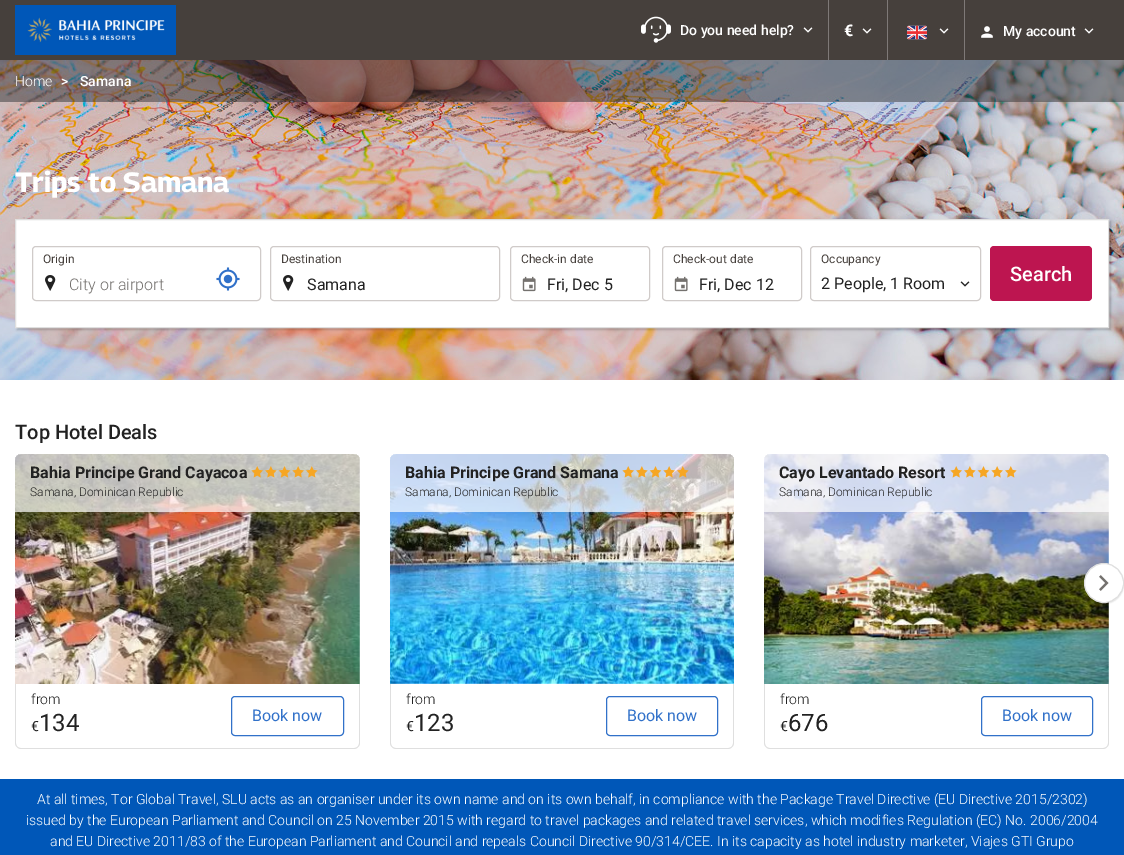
%!PS-Adobe-3.0
%%BoundingBox: 0 0 1124 855
%%LanguageLevel: 3
%%Pages: 1
%%EndComments
%%BeginProlog
/setink { dup -16 bitshift 255 div exch dup -8 bitshift 255 and 255 div exch 255 and 255 div setrgbcolor } def
/usefont { [ exch dup neg 0 0 3 -1 roll 0 0 ] selectfont } def
/setalpha { dup .setfillconstantalpha .setstrokeconstantalpha } def
/disc { newpath 0 360 arc closepath } def
/rrect { 5 dict begin { /r /h /w /y /x } { exch def } forall
  x r add y moveto x w add y 2 copy h add r arct x w add y h add x 1 index r arct
  x y h add x y r arct x y 2 copy exch w add exch r arct closepath end } def
/softshadow { 12 dict begin { /a /b /q /h /w /y /x } { exch def } forall gsave /was 0 def
  9 -2 -9 { dup b mul 4 div /e exch def 1 sub .425 mul 2.718 exch exp 1 add a .99 .min exch div /now exch def
    1 1 now sub 1 was sub div sub setalpha /was now def
    w h .min e 2 mul add 0 gt { x e sub y e sub w e 2 mul add h e 2 mul add
      q e add b .6 mul add w h .min 2 div e add .min 0 .max rrect fill } if } for grestore end } def
/drawimage { 5 dict begin { /h /w /y /x /name } { exch def } forall
  gsave x y translate w h scale
  w h 8 [w 0 0 h 0 0] name (r) file false 3 colorimage grestore end } def
%%EndProlog
%%BeginSetup
<< /PageSize [1124 855] /PageUsesTransparency true >> setpagedevice
%%EndSetup
%%Page: 1 1
0 .pushpdf14devicefilter
0 855 translate 1 -1 scale
4 setmiterlimit
16#FFFFFF setink
0 0 1124 855 rectfill
16#46403C setink
0 0 1124 60 rectfill
(img1.raw) 15 5 161 50 drawimage
16#7E7977 setink
828 0 1 60 rectfill
(img2.raw) 641 16 30 27 drawimage
/Roboto-Medium 14 usefont
16#FFFFFF setink
680 35 moveto (Do you need help?) show
(img3.raw) 803 27 10 6 drawimage
16#7E7977 setink
887 0 1 60 rectfill
/Roboto-Bold 16 usefont
16#FFFFFF setink
844 36 moveto (€) show
(img3.raw) 862 28 10 6 drawimage
16#7E7977 setink
964 0 1 60 rectfill
(img4.raw) 907 25 20 15 drawimage
(img3.raw) 939 28 10 6 drawimage
(img5.raw) 981 26 12 12 drawimage
/Roboto-Medium 14 usefont
16#FFFFFF setink
1003 36 moveto (My account) show
(img3.raw) 1084 28 10 6 drawimage
(img6.raw) 0 60 1124 320 drawimage
0.5 setalpha
16#303235 setink
0 60 1124 42 rectfill
/Roboto-Light 14 usefont
1 setalpha
16#FFFFFF setink
15 86 moveto (Home) show
/Roboto-Medium 14 usefont
61 86 moveto (>) show
80 86 moveto (Samana) show
/Georama-Bold 28 usefont
15 192 moveto (Trips to Samana) show
16#000000 setink
17 221 1094 109 0 1 0.2 softshadow
16#FFFFFF setink
15.5 219.5 moveto 1108.5 219.5 lineto 1108.5 327.5 lineto 15.5 327.5 lineto closepath gsave fill grestore
16#DFDFDF setink
stroke
(img7.raw) 45 275 11 16 drawimage
16#D0CBC9 setink
32.5 246.5 228 54 3.5 rrect stroke
/Roboto-Regular 12 usefont
16#46403C setink
43 263 moveto (Origin) show
/Roboto-Light 16 usefont
16#74716E setink
69 290 moveto (City or airport) show
(img8.raw) 216 267 24 24 drawimage
(img7.raw) 283 275 11 16 drawimage
16#D0CBC9 setink
270.5 246.5 229 54 3.5 rrect stroke
/Roboto-Regular 12 usefont
16#46403C setink
281 263 moveto (Destination) show
/Roboto-Regular 16 usefont
16#222222 setink
307 290 moveto (Samana) show
(img9.raw) 522 276 14 16 drawimage
16#D0CBC9 setink
510.5 246.5 139 54 3.5 rrect stroke
/Roboto-Regular 12 usefont
16#46403C setink
521 263 moveto (Check-in date) show
/Roboto-Regular 16 usefont
16#222222 setink
547 290 moveto (Fri, Dec 5) show
(img9.raw) 674 276 14 16 drawimage
16#D0CBC9 setink
662.5 246.5 139 54 3.5 rrect stroke
/Roboto-Regular 12 usefont
16#46403C setink
673 263 moveto (Check-out date) show
/Roboto-Regular 16 usefont
16#222222 setink
699 290 moveto (Fri, Dec 12) show
16#D0CBC9 setink
810.5 246.5 170 54 3.5 rrect stroke
/Roboto-Regular 12 usefont
16#46403C setink
821 263 moveto (Occupancy) show
/Roboto-Regular 16 usefont
16#222222 setink
821 289 moveto (2 People, 1 Room) show
(img10.raw) 960 281 10 6 drawimage
16#BD1550 setink
990 246 102 55 4 rrect fill
/Roboto-Medium 20 usefont
16#FFFFFF setink
1010 281 moveto (Search) show
16#222222 setink
15 439 moveto (Top Hotel Deals) show
(img11.raw) 15 454 345 230 drawimage
0.7 setalpha
16#FFFFFF setink
21 454 moveto 354 454 lineto 357.5 454 360 456.5 360 460 curveto 360 512 lineto 15 512 lineto 15 460 lineto 15 456.5 17.5 454 21 454 curveto closepath fill
/Roboto-Bold 16 usefont
1 setalpha
16#222222 setink
30 478 moveto (Bahia Principe Grand Cayacoa) show
(img12.raw) 251 466 67 12 drawimage
/Roboto-Light 12 usefont
30 496 moveto (Samana, Dominican Republic) show
16#DFDFDF setink
15 684 moveto 360 684 lineto 360 743 lineto 360 746 357 749 354 749 curveto 21 749 lineto 18 749 15 746 15 743 curveto closepath 16 684 moveto 359 684 lineto 359 743 lineto 359 746 357 748 354 748 curveto 21 748 lineto 18 748 16 746 16 743 curveto closepath eofill
/Roboto-Light 14 usefont
16#222222 setink
31 704 moveto (from) show
/Roboto-Regular 14 usefont
31 731 moveto (€) show
/Roboto-Regular 24 usefont
39 731 moveto (134) show
16#3171C9 setink
231.5 696.5 112 39 3.5 rrect stroke
/Roboto-Regular 16 usefont
252 721 moveto (Book now) show
(img13.raw) 390 454 344 230 drawimage
0.7 setalpha
16#FFFFFF setink
396 454 moveto 728 454 lineto 731.5 454 734 456.5 734 460 curveto 734 512 lineto 390 512 lineto 390 460 lineto 390 456.5 392.5 454 396 454 curveto closepath fill
/Roboto-Bold 16 usefont
1 setalpha
16#222222 setink
405 478 moveto (Bahia Principe Grand Samana) show
(img14.raw) 622 466 67 12 drawimage
/Roboto-Light 12 usefont
405 496 moveto (Samana, Dominican Republic) show
16#DFDFDF setink
390 684 moveto 734 684 lineto 734 743 lineto 734 746 731 749 728 749 curveto 396 749 lineto 393 749 390 746 390 743 curveto closepath 391 684 moveto 733 684 lineto 733 743 lineto 733 746 731 748 728 748 curveto 396 748 lineto 393 748 391 746 391 743 curveto closepath eofill
/Roboto-Light 14 usefont
16#222222 setink
406 704 moveto (from) show
/Roboto-Regular 14 usefont
406 731 moveto (€) show
/Roboto-Regular 24 usefont
414 731 moveto (123) show
16#3171C9 setink
606.5 696.5 111 39 3.5 rrect stroke
/Roboto-Regular 16 usefont
627 721 moveto (Book now) show
(img15.raw) 764 454 345 230 drawimage
0.7 setalpha
16#FFFFFF setink
770 454 moveto 1103 454 lineto 1106.5 454 1109 456.5 1109 460 curveto 1109 512 lineto 764 512 lineto 764 460 lineto 764 456.5 766.5 454 770 454 curveto closepath fill
/Roboto-Bold 16 usefont
1 setalpha
16#222222 setink
779 478 moveto (Cayo Levantado Resort) show
(img16.raw) 950 466 67 12 drawimage
/Roboto-Light 12 usefont
779 496 moveto (Samana, Dominican Republic) show
16#DFDFDF setink
764 684 moveto 1109 684 lineto 1109 743 lineto 1109 746 1106 749 1103 749 curveto 770 749 lineto 767 749 764 746 764 743 curveto closepath 765 684 moveto 1108 684 lineto 1108 743 lineto 1108 746 1106 748 1103 748 curveto 770 748 lineto 767 748 765 746 765 743 curveto closepath eofill
/Roboto-Light 14 usefont
16#222222 setink
780 704 moveto (from) show
/Roboto-Regular 14 usefont
780 731 moveto (€) show
/Roboto-Regular 24 usefont
788 731 moveto (676) show
16#3171C9 setink
981.5 696.5 111 39 3.5 rrect stroke
/Roboto-Regular 16 usefont
1002 721 moveto (Book now) show
16#000000 setink
1084 564 40 40 20 0.5 0.1 softshadow
16#FFFFFF setink
1104 583 19.5 disc gsave fill grestore
16#DFDFDF setink
stroke
(img17.raw) 1099 575 10 16 drawimage
16#0057B8 setink
0 779 1124 76 rectfill
/Roboto-Light 14 usefont
16#FFFFFF setink
[
    [(At all times, Tor Global Travel, SLU acts as an organiser under its own name and on its own behalf, in compliance with the Package Travel Directive \(EU Directive 2015/2302\)) 37 804]
    [(issued by the European Parliament and Council on 25 November 2015 with regard to travel packages and related travel services, which modifies Regulation \(EC\) No. 2006/2004) 26 825]
    [(and EU Directive 2011/83 of the European Parliament and Council and repeals Council Directive 90/314/CEE. In its capacity as hotel industry marketer, Viajes GTI Grupo) 50 846]
] { aload pop moveto show } forall
.poppdf14devicefilter showpage
%%EOF
